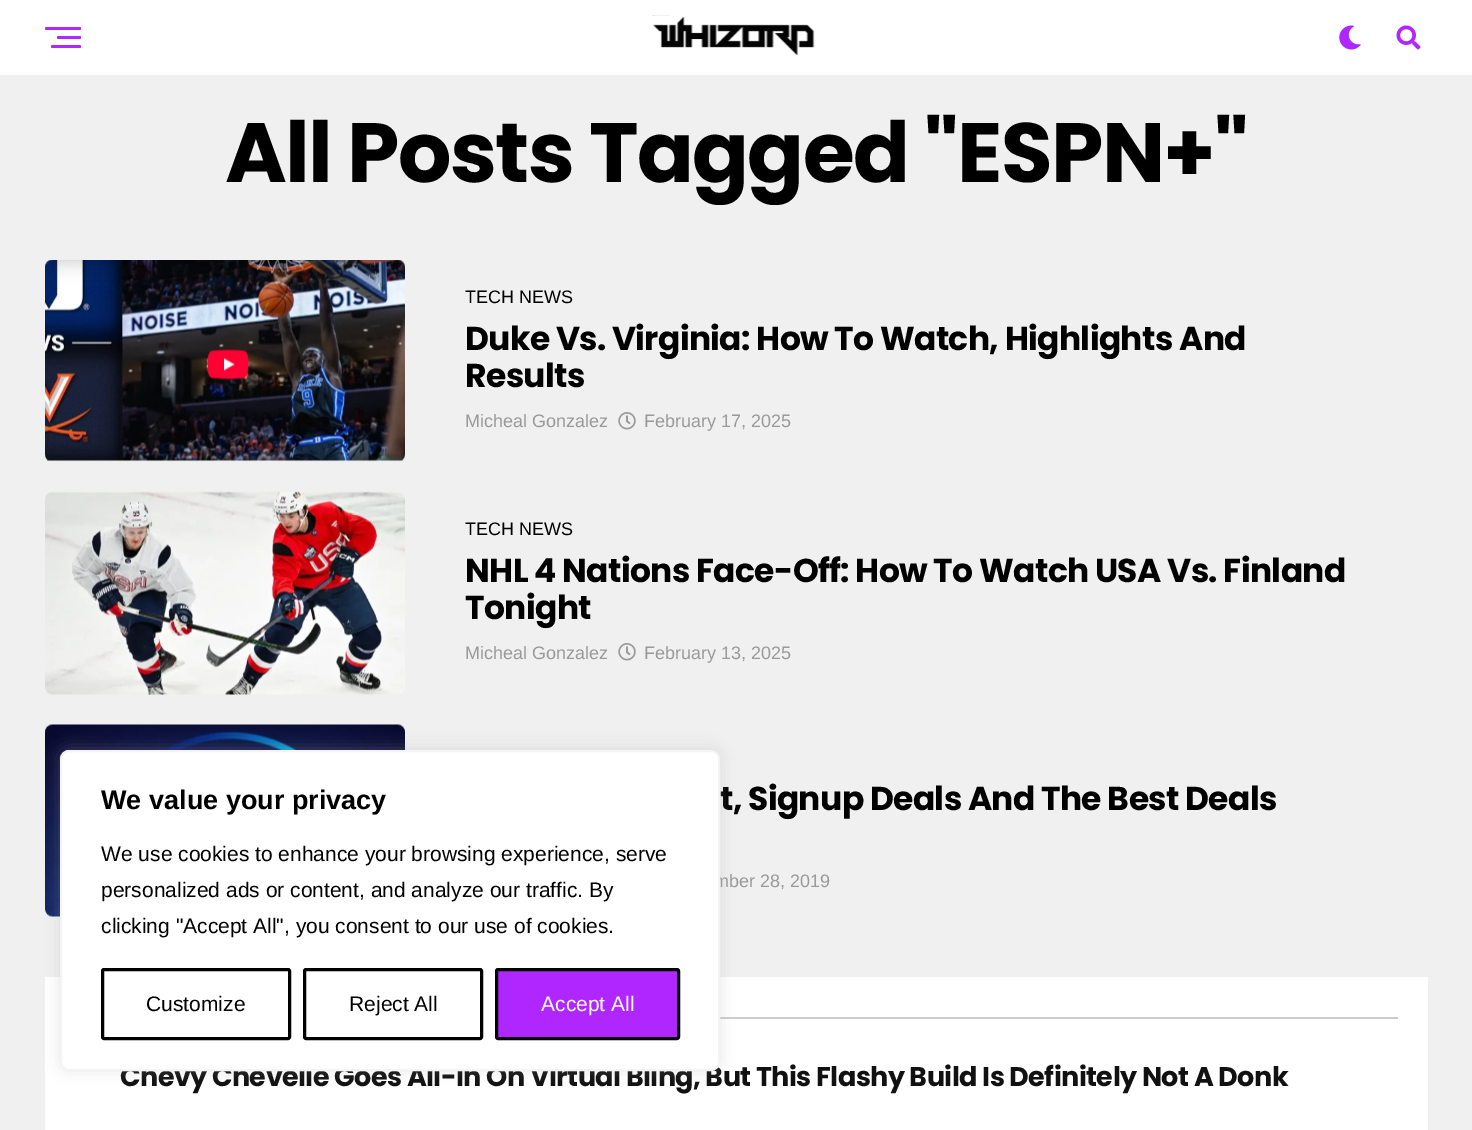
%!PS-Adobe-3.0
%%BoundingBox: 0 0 1472 1130
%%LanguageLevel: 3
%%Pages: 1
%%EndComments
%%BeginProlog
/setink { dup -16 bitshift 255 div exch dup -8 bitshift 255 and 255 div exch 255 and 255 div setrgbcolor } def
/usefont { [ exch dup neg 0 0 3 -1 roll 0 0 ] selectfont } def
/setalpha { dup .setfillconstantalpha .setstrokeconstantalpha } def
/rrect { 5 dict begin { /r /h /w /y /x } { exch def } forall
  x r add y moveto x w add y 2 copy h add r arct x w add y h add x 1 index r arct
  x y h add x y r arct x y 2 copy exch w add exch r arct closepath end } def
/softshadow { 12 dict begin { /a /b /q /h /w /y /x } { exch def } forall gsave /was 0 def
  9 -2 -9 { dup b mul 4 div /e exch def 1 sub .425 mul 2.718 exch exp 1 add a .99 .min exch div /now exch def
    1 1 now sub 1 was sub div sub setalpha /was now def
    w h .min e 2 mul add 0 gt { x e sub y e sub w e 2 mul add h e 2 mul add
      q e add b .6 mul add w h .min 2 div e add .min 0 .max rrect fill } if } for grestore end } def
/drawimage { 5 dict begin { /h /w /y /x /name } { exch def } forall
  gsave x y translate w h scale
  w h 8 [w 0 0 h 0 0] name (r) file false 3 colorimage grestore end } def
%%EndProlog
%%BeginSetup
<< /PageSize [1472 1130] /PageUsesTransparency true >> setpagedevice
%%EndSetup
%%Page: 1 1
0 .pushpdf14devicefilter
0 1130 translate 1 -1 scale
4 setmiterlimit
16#F0F0F0 setink
0 0 1472 1130 rectfill
16#FFFFFF setink
0 0 1472 75 rectfill
16#B026FF setink
45 27 36 3 1.5 rrect fill
57 36 24 3 1.5 rrect fill
51 45 30 3 1.5 rrect fill
(img1.raw) 652 15 163 41 drawimage
(img2.raw) 1339 25 22 25 drawimage
(img3.raw) 1396 25 25 25 drawimage
/Poppins-Bold 84 usefont
16#000000 setink
225 182 moveto -1.7 0 (All Posts Tagged "ESPN+") ashow
(img4.raw) 45 260 360 202 drawimage
/LiberationSans-Regular 18 usefont
465 303 moveto (TECH NEWS) show
/Poppins-Bold 33 usefont
465 350 moveto -0.65 0 (Duke Vs. Virginia: How To Watch, Highlights And) ashow
465 387 moveto -0.65 0 (Results) ashow
/LiberationSans-Regular 18 usefont
16#999999 setink
465 427 moveto (Micheal Gonzalez) show
(img5.raw) 618 412 18 18 drawimage
644 427 moveto (February 17, 2025) show
(img6.raw) 45 491 360 204 drawimage
16#000000 setink
465 535 moveto (TECH NEWS) show
/Poppins-Bold 33 usefont
465 582 moveto -0.65 0 (NHL 4 Nations Face-Off: How To Watch USA Vs. Finland) ashow
465 619 moveto -0.65 0 (Tonight) ashow
/LiberationSans-Regular 18 usefont
16#999999 setink
465 659 moveto (Micheal Gonzalez) show
(img5.raw) 618 643 18 18 drawimage
644 659 moveto (February 13, 2025) show
(img7.raw) 45 724 360 193 drawimage
/Poppins-Bold 33 usefont
16#000000 setink
720 810 moveto -0.65 0 (t, Signup Deals And The Best Deals) ashow
/LiberationSans-Regular 18 usefont
16#999999 setink
714 887 moveto (mber 28, 2019) show
16#FFFFFF setink
45 977 1383 153 rectfill
16#CCCCCC setink
720 1017 678 2 rectfill
/Poppins-Bold 27 usefont
16#111111 setink
120 1086 moveto -0.55 0 (Chevy Chevelle Goes All-In On Virtual Bling, But This Flashy Build Is Definitely Not A Donk) ashow
16#ACABAB setink
60 749 660 321 9 7.5 0.3 softshadow
16#FFFFFF setink
61 751 658 319 8 rrect gsave fill grestore
16#F4F4F4 setink
2 setlinewidth
stroke
/LiberationSans-Bold 27 usefont
16#000000 setink
101 809 moveto (We value your privacy) show
/LiberationSans-Regular 21 usefont
[
    [(We use cookies to enhance your browsing experience, serve) 101 861]
    [(personalized ads or content, and analyze our traffic. By) 101 897]
    [(clicking "Accept All", you consent to our use of cookies.) 101 933]
] { aload pop moveto show } forall
3 setlinewidth
102.5 969.5 187 69 1.5 rrect stroke
146 1011 moveto (Customize) show
304.5 969.5 177 69 1.5 rrect stroke
349 1011 moveto (Reject All) show
16#B026FF setink
496.5 969.5 182 69 1.5 rrect gsave fill grestore
16#000000 setink
stroke
16#FFFFFF setink
541 1011 moveto (Accept All) show
.poppdf14devicefilter showpage
%%EOF
